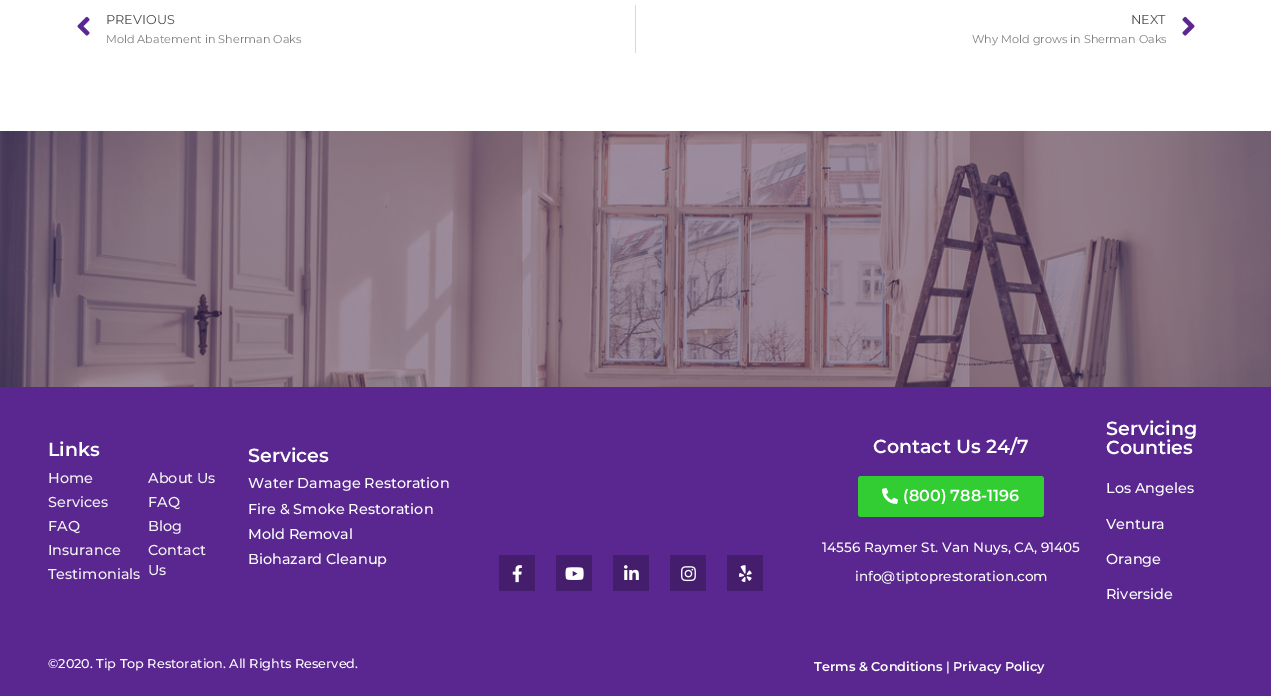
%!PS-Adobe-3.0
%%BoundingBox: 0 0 1271 696
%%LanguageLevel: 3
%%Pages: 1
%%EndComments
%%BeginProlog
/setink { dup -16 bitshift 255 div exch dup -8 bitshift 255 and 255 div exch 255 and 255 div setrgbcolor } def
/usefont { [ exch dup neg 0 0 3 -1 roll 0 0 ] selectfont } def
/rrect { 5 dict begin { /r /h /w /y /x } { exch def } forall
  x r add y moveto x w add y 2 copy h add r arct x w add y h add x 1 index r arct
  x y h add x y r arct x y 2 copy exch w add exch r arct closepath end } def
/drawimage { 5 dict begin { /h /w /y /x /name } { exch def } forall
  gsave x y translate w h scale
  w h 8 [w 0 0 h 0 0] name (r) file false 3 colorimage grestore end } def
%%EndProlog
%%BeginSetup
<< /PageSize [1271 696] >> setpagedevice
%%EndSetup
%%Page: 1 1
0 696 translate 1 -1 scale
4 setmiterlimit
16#FFFFFF setink
0 0 1271 696 rectfill
(img1.raw) 77 16 13 20 drawimage
/Montserrat-Regular 12.8 usefont
16#4D4D4D setink
106 24 moveto (PREVIOUS) show
/Montserrat-Regular 11.25 usefont
16#808080 setink
106 43 moveto (Mold Abatement in Sherman Oaks) show
16#D5D8DC setink
635 5 1 48 rectfill
/Montserrat-Regular 12.8 usefont
16#4D4D4D setink
1131 24 moveto (NEXT) show
/Montserrat-Regular 11.25 usefont
16#808080 setink
972 43 moveto (Why Mold grows in Sherman Oaks) show
(img2.raw) 1182 16 13 20 drawimage
(img3.raw) 0 131 1271 256 drawimage
16#5A2790 setink
0 387 1271 309 rectfill
/Montserrat-SemiBold 19 usefont
16#FFFFFF setink
48 456 moveto (Links) show
/Montserrat-Medium 14.4 usefont
16#F2F2F2 setink
[
    [(Home) 48 483]
    [(Services) 48 507]
    [(FAQ) 48 531]
    [(Insurance) 48 555]
    [(Testimonials) 48 579]
    [(About Us) 148 483]
    [(FAQ) 148 507]
    [(Blog) 148 531]
    [(Contact) 148 555]
    [(Us) 148 575]
] { aload pop moveto show } forall
/Montserrat-SemiBold 19 usefont
16#FFFFFF setink
248 462 moveto (Services) show
/Montserrat-Medium 14.4 usefont
[
    [(Water Damage Restoration) 248 488]
    [(Fire & Smoke Restoration) 248 514]
    [(Mold Removal) 248 539]
    [(Biohazard Cleanup) 248 564]
] { aload pop moveto show } forall
/Montserrat-SemiBold 19 usefont
873 453 moveto (Contact Us 24/7) show
16#32CD32 setink
858 476 186 41 3 rrect fill
(img4.raw) 882 488 16 16 drawimage
/Montserrat-SemiBold 16 usefont
16#FFFFFF setink
903 501 moveto (\(800\) 788-1196) show
/Montserrat-Medium 13.6 usefont
822 552 moveto (14556 Raymer St. Van Nuys, CA, 91405) show
855 581 moveto (info@tiptoprestoration.com) show
/Montserrat-SemiBold 19 usefont
1106 435 moveto (Servicing) show
1106 454 moveto (Counties) show
/Montserrat-Medium 14.4 usefont
[
    [(Los Angeles) 1106 493]
    [(Ventura) 1106 529]
    [(Orange) 1106 564]
    [(Riverside) 1106 599]
] { aload pop moveto show } forall
16#441D6C setink
499 555 36 36 rectfill
(img5.raw) 512 565 10 18 drawimage
556 555 36 36 rectfill
(img6.raw) 565 567 19 13 drawimage
613 555 36 36 rectfill
(img7.raw) 624 565 15 15 drawimage
670 555 36 36 rectfill
(img8.raw) 681 566 15 16 drawimage
727 555 36 36 rectfill
(img9.raw) 739 565 13 18 drawimage
/Montserrat-Medium 12.8 usefont
16#FFFFFF setink
48 668 moveto (©2020. Tip Top Restoration. All Rights Reserved.) show
/Montserrat-SemiBold 12.8 usefont
814 671 moveto (Terms & Conditions) show
/Montserrat-Medium 12.8 usefont
946 671 moveto (|) show
/Montserrat-SemiBold 12.8 usefont
953 671 moveto (Privacy Policy) show
showpage
%%EOF
